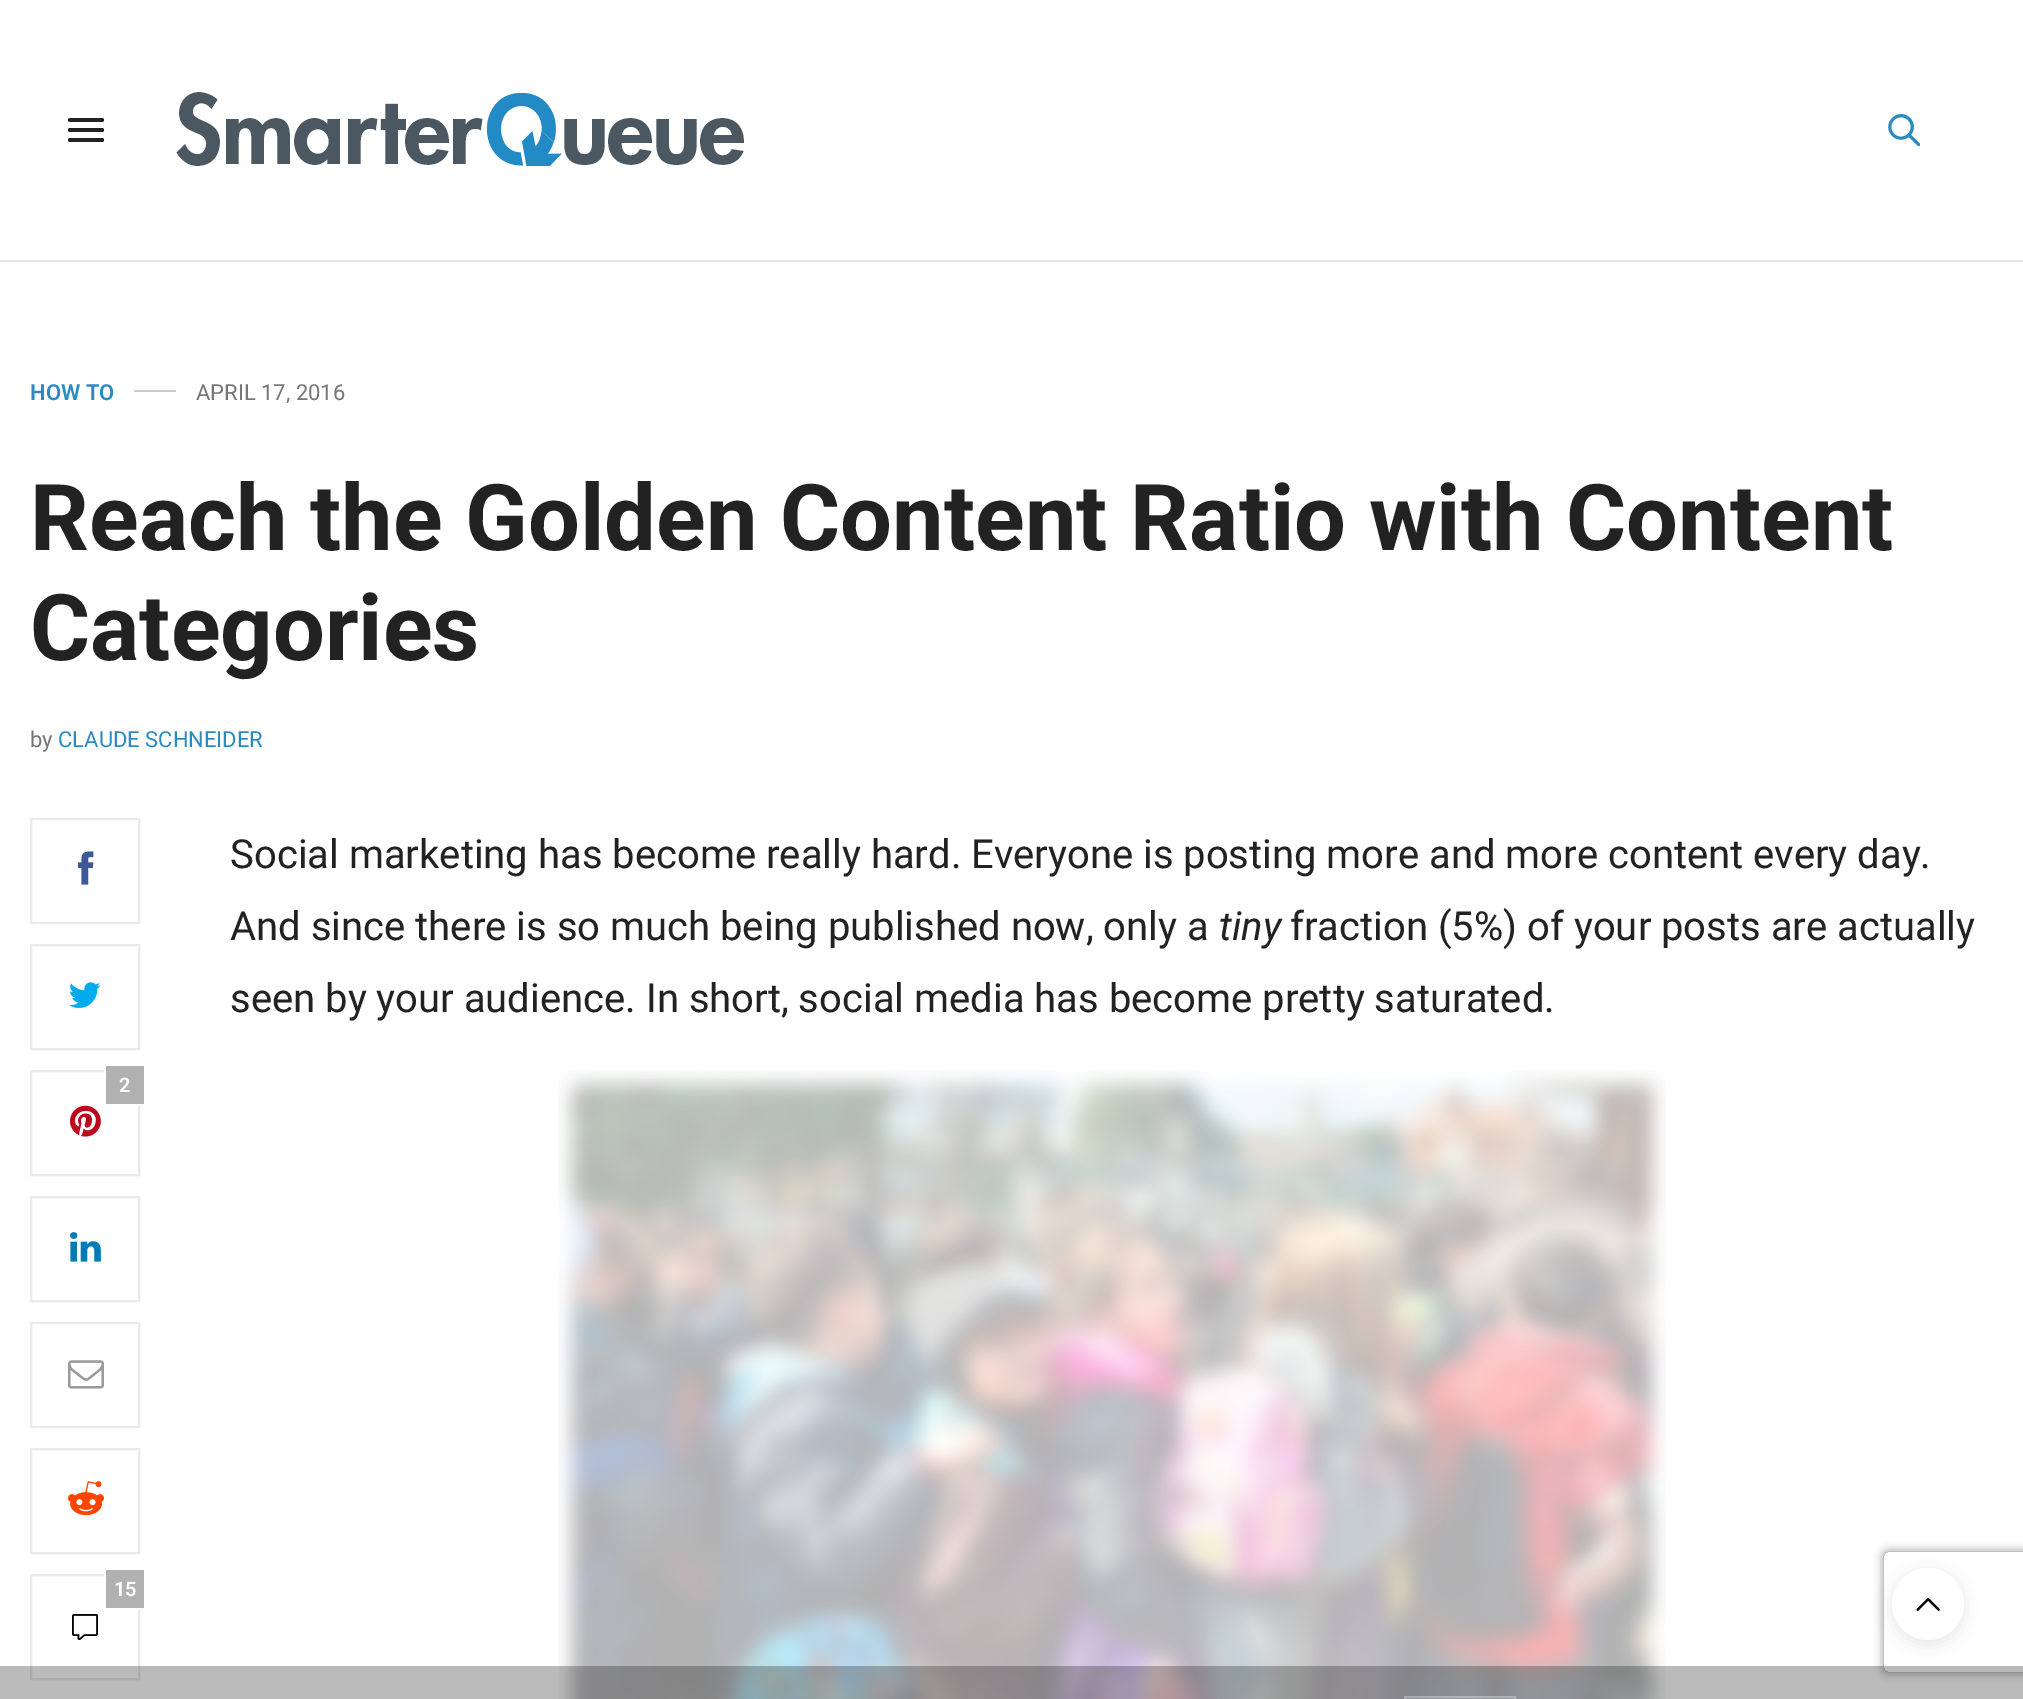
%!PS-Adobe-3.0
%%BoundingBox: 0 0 2023 1699
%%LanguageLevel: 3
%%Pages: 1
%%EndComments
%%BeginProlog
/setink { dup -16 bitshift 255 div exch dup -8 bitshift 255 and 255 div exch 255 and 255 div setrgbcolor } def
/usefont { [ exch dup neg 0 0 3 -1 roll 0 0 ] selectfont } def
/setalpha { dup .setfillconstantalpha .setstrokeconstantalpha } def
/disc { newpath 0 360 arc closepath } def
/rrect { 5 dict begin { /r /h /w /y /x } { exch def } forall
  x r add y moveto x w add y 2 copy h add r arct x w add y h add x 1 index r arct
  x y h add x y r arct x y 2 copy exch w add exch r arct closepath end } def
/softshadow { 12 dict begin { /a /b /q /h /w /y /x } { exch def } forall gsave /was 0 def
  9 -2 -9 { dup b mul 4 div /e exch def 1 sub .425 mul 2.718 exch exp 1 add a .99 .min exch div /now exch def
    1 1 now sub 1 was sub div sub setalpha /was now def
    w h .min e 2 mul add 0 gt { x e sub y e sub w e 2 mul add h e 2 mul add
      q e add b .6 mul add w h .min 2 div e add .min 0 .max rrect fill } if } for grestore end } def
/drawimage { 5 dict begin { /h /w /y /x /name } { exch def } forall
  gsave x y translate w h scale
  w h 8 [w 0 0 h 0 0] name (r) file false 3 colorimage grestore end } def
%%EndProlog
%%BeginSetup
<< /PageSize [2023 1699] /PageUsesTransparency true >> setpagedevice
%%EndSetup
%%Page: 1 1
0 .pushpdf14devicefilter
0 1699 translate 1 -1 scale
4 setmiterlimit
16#FFFFFF setink
0 0 2023 1699 rectfill
16#E6E6E6 setink
0 260 2023 2 rectfill
16#222222 setink
68 118 36 4 2 rrect fill
68 128 36 4 2 rrect fill
68 138 36 4 2 rrect fill
(img1.raw) 176 92 568 74 drawimage
(img2.raw) 1888 114 32 32 drawimage
/Roboto-SemiBold 22 usefont
16#2A8BC3 setink
30 400 moveto (HOW TO) show
16#CCCCCC setink
134 390 42 2 rectfill
/Roboto-Regular 22 usefont
16#767676 setink
196 400 moveto (APRIL 17, 2016) show
/Roboto-Bold 92 usefont
16#222222 setink
30 550 moveto (Reach the Golden Content Ratio with Content) show
30 660 moveto (Categories) show
/Roboto-Regular 22 usefont
16#767676 setink
30 747 moveto (by) show
16#2A8BC3 setink
58 747 moveto (CLAUDE SCHNEIDER) show
/Roboto-Regular 40 usefont
16#222222 setink
230 868 moveto (Social marketing has become really hard. Everyone is posting more and more content every day.) show
230 940 moveto (And since there is so much being published now, only a) show
/Roboto-Italic 40 usefont
1219 940 moveto (tiny) show
/Roboto-Regular 40 usefont
1290 940 moveto (fraction \(5%\) of your posts are actually) show
230 1012 moveto (seen by your audience. In short, social media has become pretty saturated.) show
(img3.raw) 558 1070 1108 629 drawimage
16#EAEAEA setink
2 setlinewidth
31 819 108 104 rectstroke
(img4.raw) 78 851 16 34 drawimage
31 945 108 104 rectstroke
(img5.raw) 69 982 32 26 drawimage
31 1071 108 104 rectstroke
[
    [106 1066 38 38 16#B1B1B1]
    [138 1104 6 2 16#FFFFFF]
    [104 1066 2 6 16#FFFFFF]
] { aload pop setink rectfill } forall
/Roboto-SemiBold 20 usefont
119 1092 moveto (2) show
(img6.raw) 70 1105 31 32 drawimage
16#EAEAEA setink
31 1197 108 104 rectstroke
(img7.raw) 70 1232 31 30 drawimage
31 1323 108 104 rectstroke
(img8.raw) 68 1360 36 29 drawimage
31 1449 108 104 rectstroke
(img9.raw) 68 1481 36 35 drawimage
31 1575 108 104 rectstroke
[
    [106 1570 38 38 16#B1B1B1]
    [138 1608 6 2 16#FFFFFF]
    [104 1570 2 6 16#FFFFFF]
] { aload pop setink rectfill } forall
114 1596 moveto (15) show
(img10.raw) 72 1614 26 26 drawimage
gsave
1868 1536 moveto 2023 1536 lineto 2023 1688 lineto 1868 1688 lineto closepath 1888 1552 moveto 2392 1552 lineto 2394 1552 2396 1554 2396 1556 curveto 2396 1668 lineto 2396 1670 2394 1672 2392 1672 curveto 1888 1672 lineto 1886 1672 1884 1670 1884 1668 curveto 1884 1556 lineto 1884 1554 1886 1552 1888 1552 curveto closepath eoclip newpath
16#808080 setink
1884 1552 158 120 4 5 1 softshadow
grestore
0.31 setalpha
16#222222 setink
0 1666 2023 33 rectfill
1 setalpha
16#000000 setink
1892 1572 72 72 36 8 0.1 softshadow
16#FFFFFF setink
1928 1604 36 disc fill
(img11.raw) 1916 1598 24 13 drawimage
0.31 setalpha
1405 1697 110 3 rectstroke
.poppdf14devicefilter showpage
%%EOF
